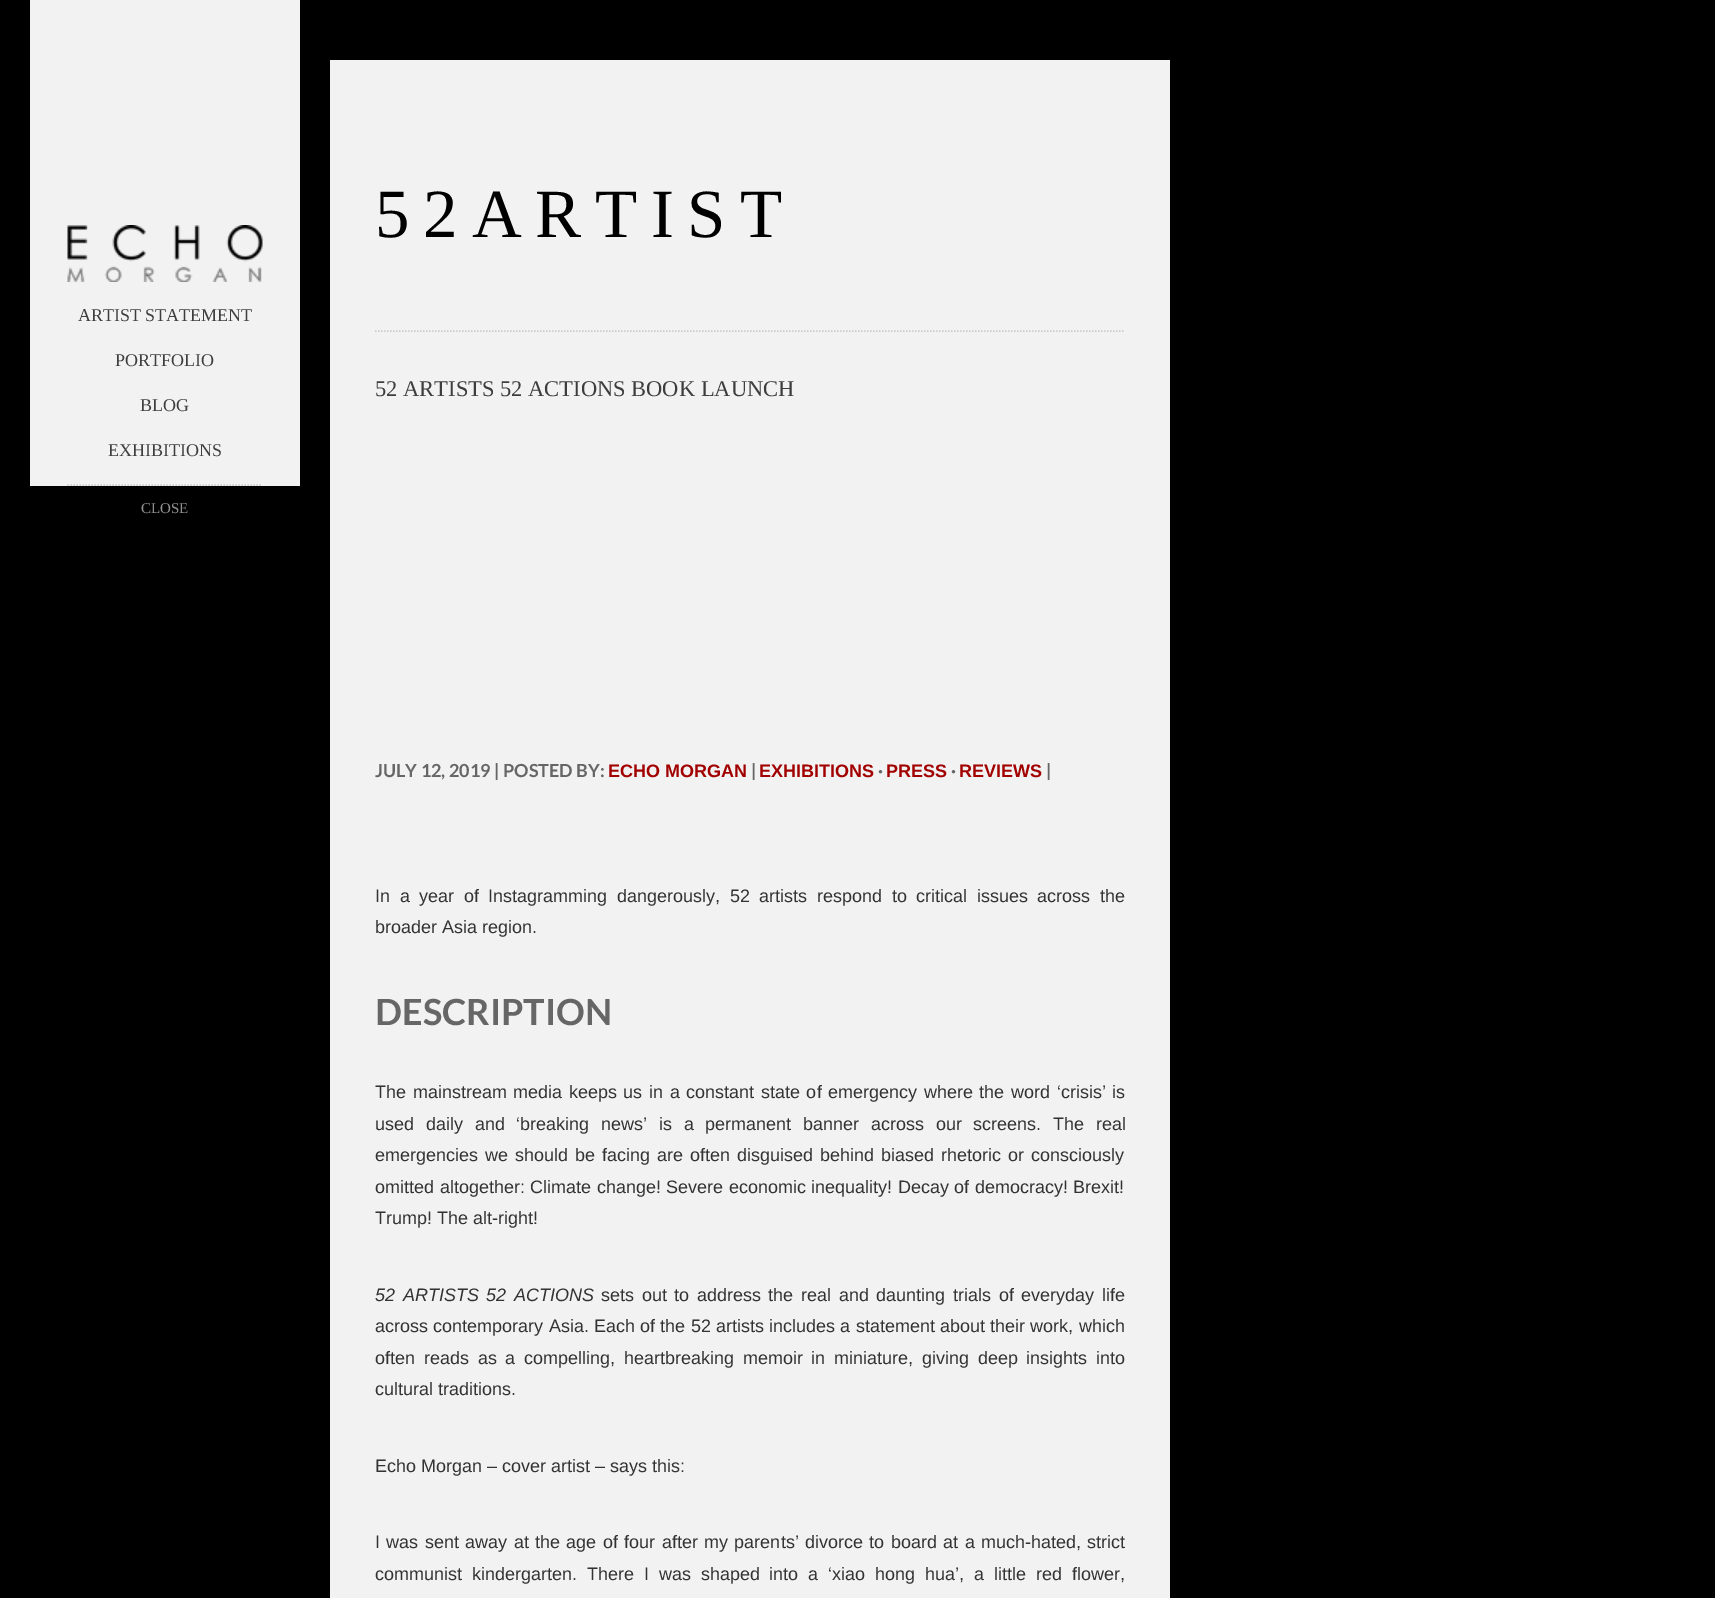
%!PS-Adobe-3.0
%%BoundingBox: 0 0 1715 1598
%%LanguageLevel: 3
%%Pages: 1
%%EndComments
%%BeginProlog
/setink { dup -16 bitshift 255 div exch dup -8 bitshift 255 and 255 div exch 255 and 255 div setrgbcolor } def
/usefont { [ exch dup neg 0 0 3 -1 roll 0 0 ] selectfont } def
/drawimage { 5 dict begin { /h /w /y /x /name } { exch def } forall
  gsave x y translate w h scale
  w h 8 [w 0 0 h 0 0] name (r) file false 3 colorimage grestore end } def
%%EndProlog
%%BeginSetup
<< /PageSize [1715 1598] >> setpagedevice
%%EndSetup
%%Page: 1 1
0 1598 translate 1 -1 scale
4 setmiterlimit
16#000000 setink
0 0 1715 1598 rectfill
16#F2F2F2 setink
30 0 270 486 rectfill
(img1.raw) 67 225 196 57 drawimage
16#CCCCCC setink
1.5 setlinewidth
[1.5 1.5] 0 setdash
67.5 485 moveto 262.5 485 lineto stroke
/LiberationSerif-Regular 18 usefont
16#3D3D3D setink
[
    [(ARTIST STATEMENT) 78 321]
    [(PORTFOLIO) 115 366]
    [(BLOG) 140 411]
    [(EXHIBITIONS) 108 456]
] { aload pop moveto show } forall
/LiberationSerif-Regular 15 usefont
16#919191 setink
141 513 moveto (CLOSE) show
16#F2F2F2 setink
330 60 840 1538 rectfill
/LiberationSerif-Regular 69 usefont
16#000000 setink
375 237 moveto 13.75 0 (52ARTIST) ashow
16#CCCCCC setink
375 331 moveto 1125 331 lineto stroke
/LiberationSerif-Regular 22.5 usefont
16#3D3D3D setink
375 396 moveto (52 ARTISTS 52 ACTIONS BOOK LAUNCH) show
/Lato-Bold 18 usefont
16#666666 setink
375 777 moveto (JULY 12, 2019 | POSTED BY:) show
/LiberationSans-Bold 18 usefont
16#A20000 setink
608 777 moveto (ECHO MORGAN) show
/Lato-Bold 18 usefont
16#666666 setink
751 777 moveto (|) show
/LiberationSans-Bold 18 usefont
16#A20000 setink
759 777 moveto (EXHIBITIONS) show
/Lato-Bold 18 usefont
16#666666 setink
878 777 moveto (·) show
/LiberationSans-Bold 18 usefont
16#A20000 setink
886 777 moveto (PRESS) show
/Lato-Bold 18 usefont
16#666666 setink
951 777 moveto (·) show
/LiberationSans-Bold 18 usefont
16#A20000 setink
959 777 moveto (REVIEWS) show
/Lato-Bold 18 usefont
16#666666 setink
1046 777 moveto (|) show
/LiberationSans-Regular 18 usefont
16#333333 setink
375 902 moveto 4.6 0 32 (In a year of Instagramming dangerously, 52 artists respond to critical issues across the) widthshow
375 933 moveto (broader Asia region.) show
/Lato-Bold 36 usefont
16#666666 setink
375 1025 moveto (DESCRIPTION) show
/LiberationSans-Regular 18 usefont
16#333333 setink
375 1098 moveto 1.6 0 32 (The mainstream media keeps us in a constant state of emergency where the word ‘crisis’ is) widthshow
375 1130 moveto 6.75 0 32 (used daily and ‘breaking news’ is a permanent banner across our screens. The real) widthshow
375 1161 moveto 2 0 32 (emergencies we should be facing are often disguised behind biased rhetoric or consciously) widthshow
375 1193 moveto 0.5 0 32 (omitted altogether: Climate change! Severe economic inequality! Decay of democracy! Brexit!) widthshow
375 1224 moveto (Trump! The alt-right!) show
/LiberationSans-Italic 18 usefont
375 1301 moveto 2.6 0 32 (52 ARTISTS 52 ACTIONS) widthshow
/LiberationSans-Regular 18 usefont
601 1301 moveto 2.6 0 32 (sets out to address the real and daunting trials of everyday life) widthshow
375 1332 moveto 0.25 0 32 (across contemporary Asia. Each of the 52 artists includes a statement about their work, which) widthshow
375 1364 moveto 3.75 0 32 (often reads as a compelling, heartbreaking memoir in miniature, giving deep insights into) widthshow
375 1395 moveto (cultural traditions.) show
375 1472 moveto (Echo Morgan – cover artist – says this:) show
375 1548 moveto 1.4 0 32 (I was sent away at the age of four after my parents’ divorce to board at a much-hated, strict) widthshow
375 1580 moveto 4.9 0 32 (communist kindergarten. There I was shaped into a ‘xiao hong hua’, a little red flower,) widthshow
showpage
%%EOF
